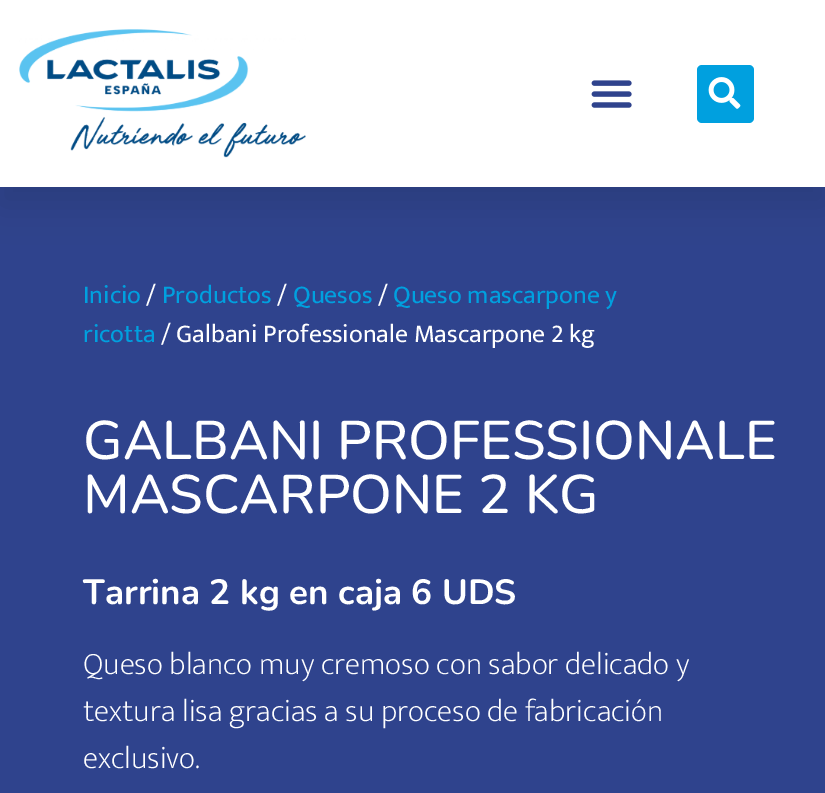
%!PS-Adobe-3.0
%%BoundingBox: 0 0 825 793
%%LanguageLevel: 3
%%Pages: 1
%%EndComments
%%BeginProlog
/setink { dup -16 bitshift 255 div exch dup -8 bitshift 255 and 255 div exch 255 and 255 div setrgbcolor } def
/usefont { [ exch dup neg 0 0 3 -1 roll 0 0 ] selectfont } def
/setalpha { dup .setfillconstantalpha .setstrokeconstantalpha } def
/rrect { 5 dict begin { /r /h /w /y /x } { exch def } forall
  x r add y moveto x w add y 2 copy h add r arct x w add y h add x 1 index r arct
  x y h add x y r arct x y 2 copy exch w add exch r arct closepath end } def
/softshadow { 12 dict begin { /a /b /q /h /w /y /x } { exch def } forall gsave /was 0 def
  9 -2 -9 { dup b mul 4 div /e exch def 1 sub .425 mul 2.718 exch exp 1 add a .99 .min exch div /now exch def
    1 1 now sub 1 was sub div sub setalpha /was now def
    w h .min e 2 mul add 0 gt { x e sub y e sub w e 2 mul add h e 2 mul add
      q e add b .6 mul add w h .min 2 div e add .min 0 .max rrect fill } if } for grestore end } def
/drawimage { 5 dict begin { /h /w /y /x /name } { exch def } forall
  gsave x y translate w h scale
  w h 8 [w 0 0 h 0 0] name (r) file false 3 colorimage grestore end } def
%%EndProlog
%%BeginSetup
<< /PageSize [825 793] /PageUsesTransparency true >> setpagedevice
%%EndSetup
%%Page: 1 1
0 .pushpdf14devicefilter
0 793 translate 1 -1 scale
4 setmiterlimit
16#2F438D setink
0 0 825 793 rectfill
16#000000 setink
0 18 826 187 0 17.5 0.1 softshadow
16#FFFFFF setink
0 0 825 187 rectfill
(img1.raw) 19 29 287 129 drawimage
(img2.raw) 591 80 41 28 drawimage
16#00A0DF setink
697 65 57 58 5 rrect fill
(img3.raw) 708 77 33 32 drawimage
/Mukta-Regular 25.75 usefont
83 303 moveto (Inicio) show
16#FFFFFF setink
146 303 moveto (/) show
16#00A0DF setink
162 303 moveto (Productos) show
16#FFFFFF setink
277 303 moveto (/) show
16#00A0DF setink
293 303 moveto (Quesos) show
16#FFFFFF setink
378 303 moveto (/) show
16#00A0DF setink
393 303 moveto (Queso mascarpone y) show
83 342 moveto (ricotta) show
16#FFFFFF setink
161 342 moveto (/ Galbani Professionale Mascarpone 2 kg) show
/Nunito-Medium 54.25 usefont
83 459 moveto (GALBANI PROFESSIONALE) show
83 513 moveto (MASCARPONE 2 KG) show
/Nunito-Bold 35 usefont
83 604 moveto (Tarrina 2 kg en caja 6 UDS) show
/Mukta-ExtraLight 31.5 usefont
[
    [(Queso blanco muy cremoso con sabor delicado y) 83 674]
    [(textura lisa gracias a su proceso de fabricación) 83 721]
    [(exclusivo.) 83 768]
] { aload pop moveto show } forall
.poppdf14devicefilter showpage
%%EOF
